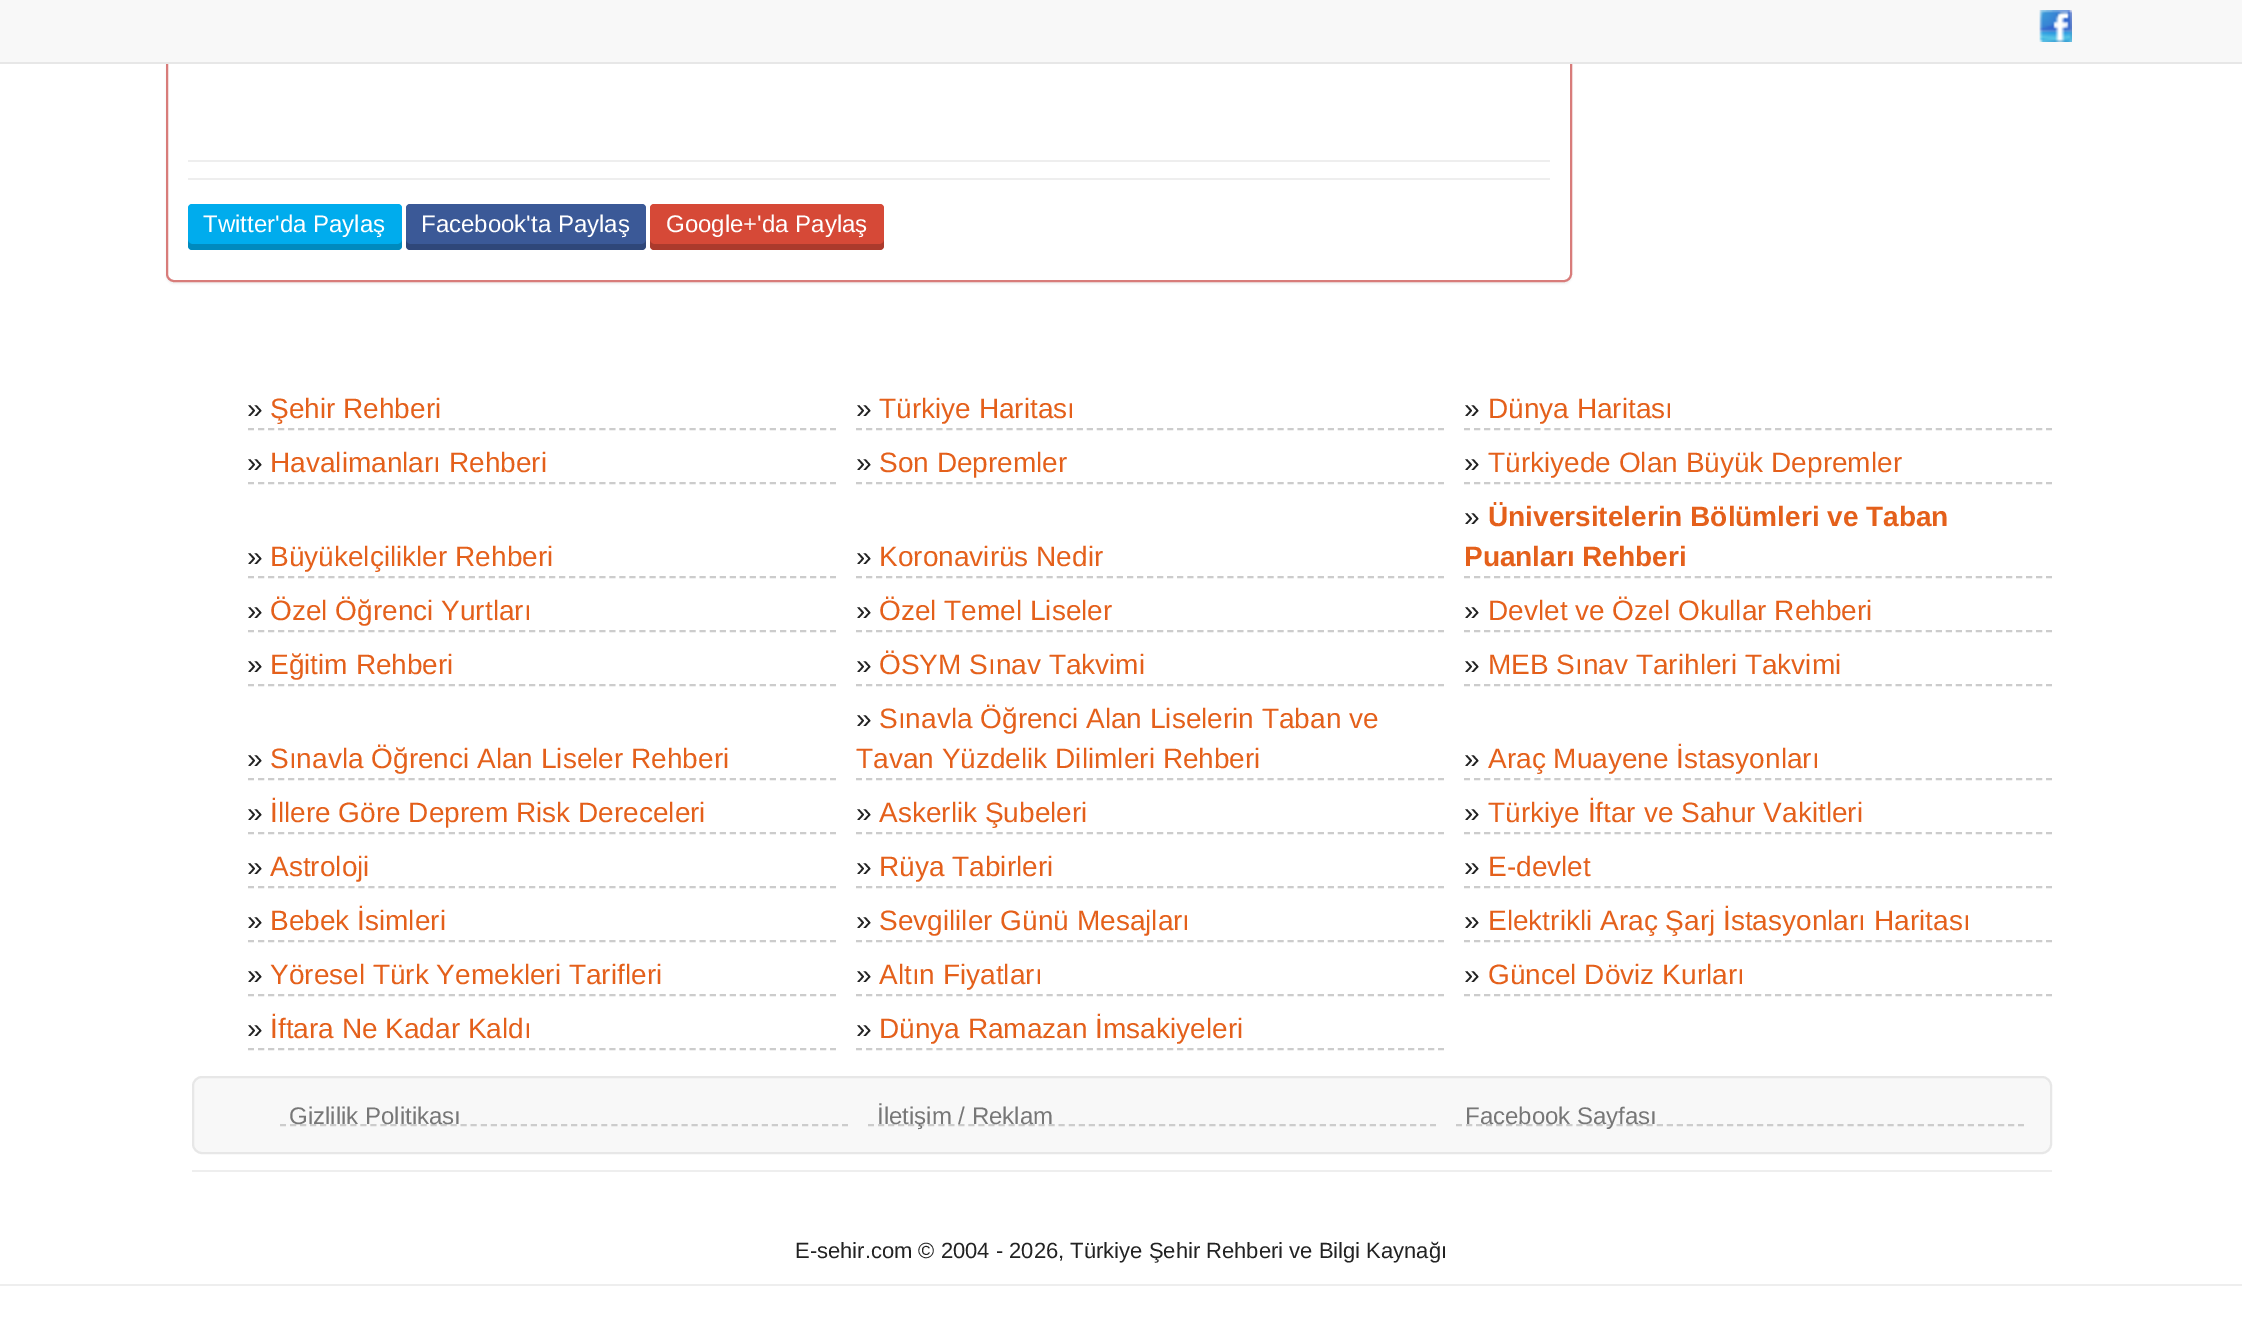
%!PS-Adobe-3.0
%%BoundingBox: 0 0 2242 1342
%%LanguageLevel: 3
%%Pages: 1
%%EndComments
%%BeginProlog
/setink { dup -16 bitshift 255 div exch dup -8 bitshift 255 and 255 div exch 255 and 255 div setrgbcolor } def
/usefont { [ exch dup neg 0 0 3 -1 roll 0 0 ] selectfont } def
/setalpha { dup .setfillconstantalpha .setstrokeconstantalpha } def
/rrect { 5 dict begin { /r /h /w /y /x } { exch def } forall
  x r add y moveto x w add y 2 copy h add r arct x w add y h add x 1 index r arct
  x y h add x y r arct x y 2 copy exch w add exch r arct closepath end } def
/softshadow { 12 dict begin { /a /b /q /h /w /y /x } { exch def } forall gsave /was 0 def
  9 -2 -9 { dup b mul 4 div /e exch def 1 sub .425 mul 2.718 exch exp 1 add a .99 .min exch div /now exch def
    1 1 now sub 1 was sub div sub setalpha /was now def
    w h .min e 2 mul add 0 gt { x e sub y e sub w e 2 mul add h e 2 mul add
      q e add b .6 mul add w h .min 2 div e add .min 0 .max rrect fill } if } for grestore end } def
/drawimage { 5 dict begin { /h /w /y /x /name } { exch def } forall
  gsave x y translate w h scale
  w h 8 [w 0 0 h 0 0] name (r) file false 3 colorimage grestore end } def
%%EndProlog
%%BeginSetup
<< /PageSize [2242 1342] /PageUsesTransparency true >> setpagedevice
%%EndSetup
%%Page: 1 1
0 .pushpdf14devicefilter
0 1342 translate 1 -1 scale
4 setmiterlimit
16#FFFFFF setink
0 0 2242 1342 rectfill
16#000000 setink
166 -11 1406 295 8 1 0.05 softshadow
16#FFFFFF setink
167 -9 1404 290 7 rrect gsave fill grestore
16#D87C7A setink
2 setlinewidth
stroke
16#F8F8F8 setink
0 0 2242 62 rectfill
16#E7E7E7 setink
0 62 2242 2 rectfill
(img1.raw) 2039 10 33 32 drawimage
16#EEEEEE setink
188 160 1362 2 rectfill
188 178 1362 2 rectfill
16#00ACED setink
188 204 214 46 4 rrect fill
0.2 setalpha
16#000000 setink
188 240 moveto 188 246 lineto 188 248 190 250 192 250 curveto 398 250 lineto 400 250 402 248 402 246 curveto 402 240 lineto 402 242 400 244 398 244 curveto 192 244 lineto 190 244 188 242 188 240 curveto closepath fill
/LiberationSans-Regular 24 usefont
1 setalpha
16#FFFFFF setink
203 232 moveto (Twitter'da Paylaş) show
16#3B5997 setink
406 204 240 46 4 rrect fill
0.2 setalpha
16#000000 setink
406 240 moveto 406 246 lineto 406 248 408 250 410 250 curveto 642 250 lineto 644 250 646 248 646 246 curveto 646 240 lineto 646 242 644 244 642 244 curveto 410 244 lineto 408 244 406 242 406 240 curveto closepath fill
1 setalpha
16#FFFFFF setink
421 232 moveto (Facebook'ta Paylaş) show
16#D64937 setink
650 204 234 46 4 rrect fill
0.2 setalpha
16#000000 setink
650 240 moveto 650 246 lineto 650 248 652 250 654 250 curveto 880 250 lineto 882 250 884 248 884 246 curveto 884 240 lineto 884 242 882 244 880 244 curveto 654 244 lineto 652 244 650 242 650 240 curveto closepath fill
1 setalpha
16#FFFFFF setink
666 232 moveto (Google+'da Paylaş) show
16#CCCCCC setink
[6 4.04] 0 setdash
248 429 moveto 836 429 lineto stroke
/LiberationSans-Regular 28 usefont
16#222222 setink
247 418 moveto (») show
16#E4601B setink
270 418 moveto (Şehir Rehberi) show
16#CCCCCC setink
856 429 moveto 1444 429 lineto stroke
16#222222 setink
856 418 moveto (») show
16#E4601B setink
879 418 moveto (Türkiye Haritası) show
16#CCCCCC setink
1464 429 moveto 2052 429 lineto stroke
16#222222 setink
1464 418 moveto (») show
16#E4601B setink
1488 418 moveto (Dünya Haritası) show
16#CCCCCC setink
248 483 moveto 836 483 lineto stroke
16#222222 setink
247 472 moveto (») show
16#E4601B setink
270 472 moveto (Havalimanları Rehberi) show
16#CCCCCC setink
856 483 moveto 1444 483 lineto stroke
16#222222 setink
856 472 moveto (») show
16#E4601B setink
879 472 moveto (Son Depremler) show
16#CCCCCC setink
1464 483 moveto 2052 483 lineto stroke
16#222222 setink
1464 472 moveto (») show
16#E4601B setink
1488 472 moveto (Türkiyede Olan Büyük Depremler) show
16#CCCCCC setink
248 577 moveto 836 577 lineto stroke
16#222222 setink
247 566 moveto (») show
16#E4601B setink
270 566 moveto (Büyükelçilikler Rehberi) show
16#CCCCCC setink
856 577 moveto 1444 577 lineto stroke
16#222222 setink
856 566 moveto (») show
16#E4601B setink
879 566 moveto (Koronavirüs Nedir) show
16#CCCCCC setink
1464 577 moveto 2052 577 lineto stroke
16#222222 setink
1464 526 moveto (») show
/LiberationSans-Bold 28 usefont
16#E4601B setink
1488 526 moveto (Üniversitelerin Bölümleri ve Taban) show
1464 566 moveto (Puanları Rehberi) show
16#CCCCCC setink
248 631 moveto 836 631 lineto stroke
/LiberationSans-Regular 28 usefont
16#222222 setink
247 620 moveto (») show
16#E4601B setink
270 620 moveto (Özel Öğrenci Yurtları) show
16#CCCCCC setink
856 631 moveto 1444 631 lineto stroke
16#222222 setink
856 620 moveto (») show
16#E4601B setink
879 620 moveto (Özel Temel Liseler) show
16#CCCCCC setink
1464 631 moveto 2052 631 lineto stroke
16#222222 setink
1464 620 moveto (») show
16#E4601B setink
1488 620 moveto (Devlet ve Özel Okullar Rehberi) show
16#CCCCCC setink
248 685 moveto 836 685 lineto stroke
16#222222 setink
247 674 moveto (») show
16#E4601B setink
270 674 moveto (Eğitim Rehberi) show
16#CCCCCC setink
856 685 moveto 1444 685 lineto stroke
16#222222 setink
856 674 moveto (») show
16#E4601B setink
879 674 moveto (ÖSYM Sınav Takvimi) show
16#CCCCCC setink
1464 685 moveto 2052 685 lineto stroke
16#222222 setink
1464 674 moveto (») show
16#E4601B setink
1488 674 moveto (MEB Sınav Tarihleri Takvimi) show
16#CCCCCC setink
248 779 moveto 836 779 lineto stroke
16#222222 setink
247 768 moveto (») show
16#E4601B setink
270 768 moveto (Sınavla Öğrenci Alan Liseler Rehberi) show
16#CCCCCC setink
856 779 moveto 1444 779 lineto stroke
16#222222 setink
856 728 moveto (») show
16#E4601B setink
879 728 moveto (Sınavla Öğrenci Alan Liselerin Taban ve) show
856 768 moveto (Tavan Yüzdelik Dilimleri Rehberi) show
16#CCCCCC setink
1464 779 moveto 2052 779 lineto stroke
16#222222 setink
1464 768 moveto (») show
16#E4601B setink
1488 768 moveto (Araç Muayene İstasyonları) show
16#CCCCCC setink
248 833 moveto 836 833 lineto stroke
16#222222 setink
247 822 moveto (») show
16#E4601B setink
270 822 moveto (İllere Göre Deprem Risk Dereceleri) show
16#CCCCCC setink
856 833 moveto 1444 833 lineto stroke
16#222222 setink
856 822 moveto (») show
16#E4601B setink
879 822 moveto (Askerlik Şubeleri) show
16#CCCCCC setink
1464 833 moveto 2052 833 lineto stroke
16#222222 setink
1464 822 moveto (») show
16#E4601B setink
1488 822 moveto (Türkiye İftar ve Sahur Vakitleri) show
16#CCCCCC setink
248 887 moveto 836 887 lineto stroke
16#222222 setink
247 876 moveto (») show
16#E4601B setink
270 876 moveto (Astroloji) show
16#CCCCCC setink
856 887 moveto 1444 887 lineto stroke
16#222222 setink
856 876 moveto (») show
16#E4601B setink
879 876 moveto (Rüya Tabirleri) show
16#CCCCCC setink
1464 887 moveto 2052 887 lineto stroke
16#222222 setink
1464 876 moveto (») show
16#E4601B setink
1488 876 moveto (E-devlet) show
16#CCCCCC setink
248 941 moveto 836 941 lineto stroke
16#222222 setink
247 930 moveto (») show
16#E4601B setink
270 930 moveto (Bebek İsimleri) show
16#CCCCCC setink
856 941 moveto 1444 941 lineto stroke
16#222222 setink
856 930 moveto (») show
16#E4601B setink
879 930 moveto (Sevgililer Günü Mesajları) show
16#CCCCCC setink
1464 941 moveto 2052 941 lineto stroke
16#222222 setink
1464 930 moveto (») show
16#E4601B setink
1488 930 moveto (Elektrikli Araç Şarj İstasyonları Haritası) show
16#CCCCCC setink
248 995 moveto 836 995 lineto stroke
16#222222 setink
247 984 moveto (») show
16#E4601B setink
270 984 moveto (Yöresel Türk Yemekleri Tarifleri) show
16#CCCCCC setink
856 995 moveto 1444 995 lineto stroke
16#222222 setink
856 984 moveto (») show
16#E4601B setink
879 984 moveto (Altın Fiyatları) show
16#CCCCCC setink
1464 995 moveto 2052 995 lineto stroke
16#222222 setink
1464 984 moveto (») show
16#E4601B setink
1488 984 moveto (Güncel Döviz Kurları) show
16#CCCCCC setink
248 1049 moveto 836 1049 lineto stroke
16#222222 setink
247 1038 moveto (») show
16#E4601B setink
270 1038 moveto (İftara Ne Kadar Kaldı) show
16#CCCCCC setink
856 1049 moveto 1444 1049 lineto stroke
16#222222 setink
856 1038 moveto (») show
16#E4601B setink
879 1038 moveto (Dünya Ramazan İmsakiyeleri) show
16#F8F8F8 setink
193 1077 1858 76 9 rrect gsave fill grestore
16#E7E7E7 setink
[] 0 setdash
stroke
16#CCCCCC setink
[6 4.04] 0 setdash
280 1125 moveto 848 1125 lineto stroke
/LiberationSans-Regular 24 usefont
16#777777 setink
289 1124 moveto (Gizlilik Politikası) show
16#CCCCCC setink
868 1125 moveto 1436 1125 lineto stroke
16#777777 setink
877 1124 moveto (İletişim / Reklam) show
16#CCCCCC setink
1456 1125 moveto 2024 1125 lineto stroke
16#777777 setink
1465 1124 moveto (Facebook Sayfası) show
16#EEEEEE setink
192 1170 1860 2 rectfill
/LiberationSans-Regular 22 usefont
16#222222 setink
795 1258 moveto (E-sehir.com © 2004 - 2026, Türkiye Şehir Rehberi ve Bilgi Kaynağı) show
16#EEEEEE setink
0 1284 2242 2 rectfill
.poppdf14devicefilter showpage
%%EOF
